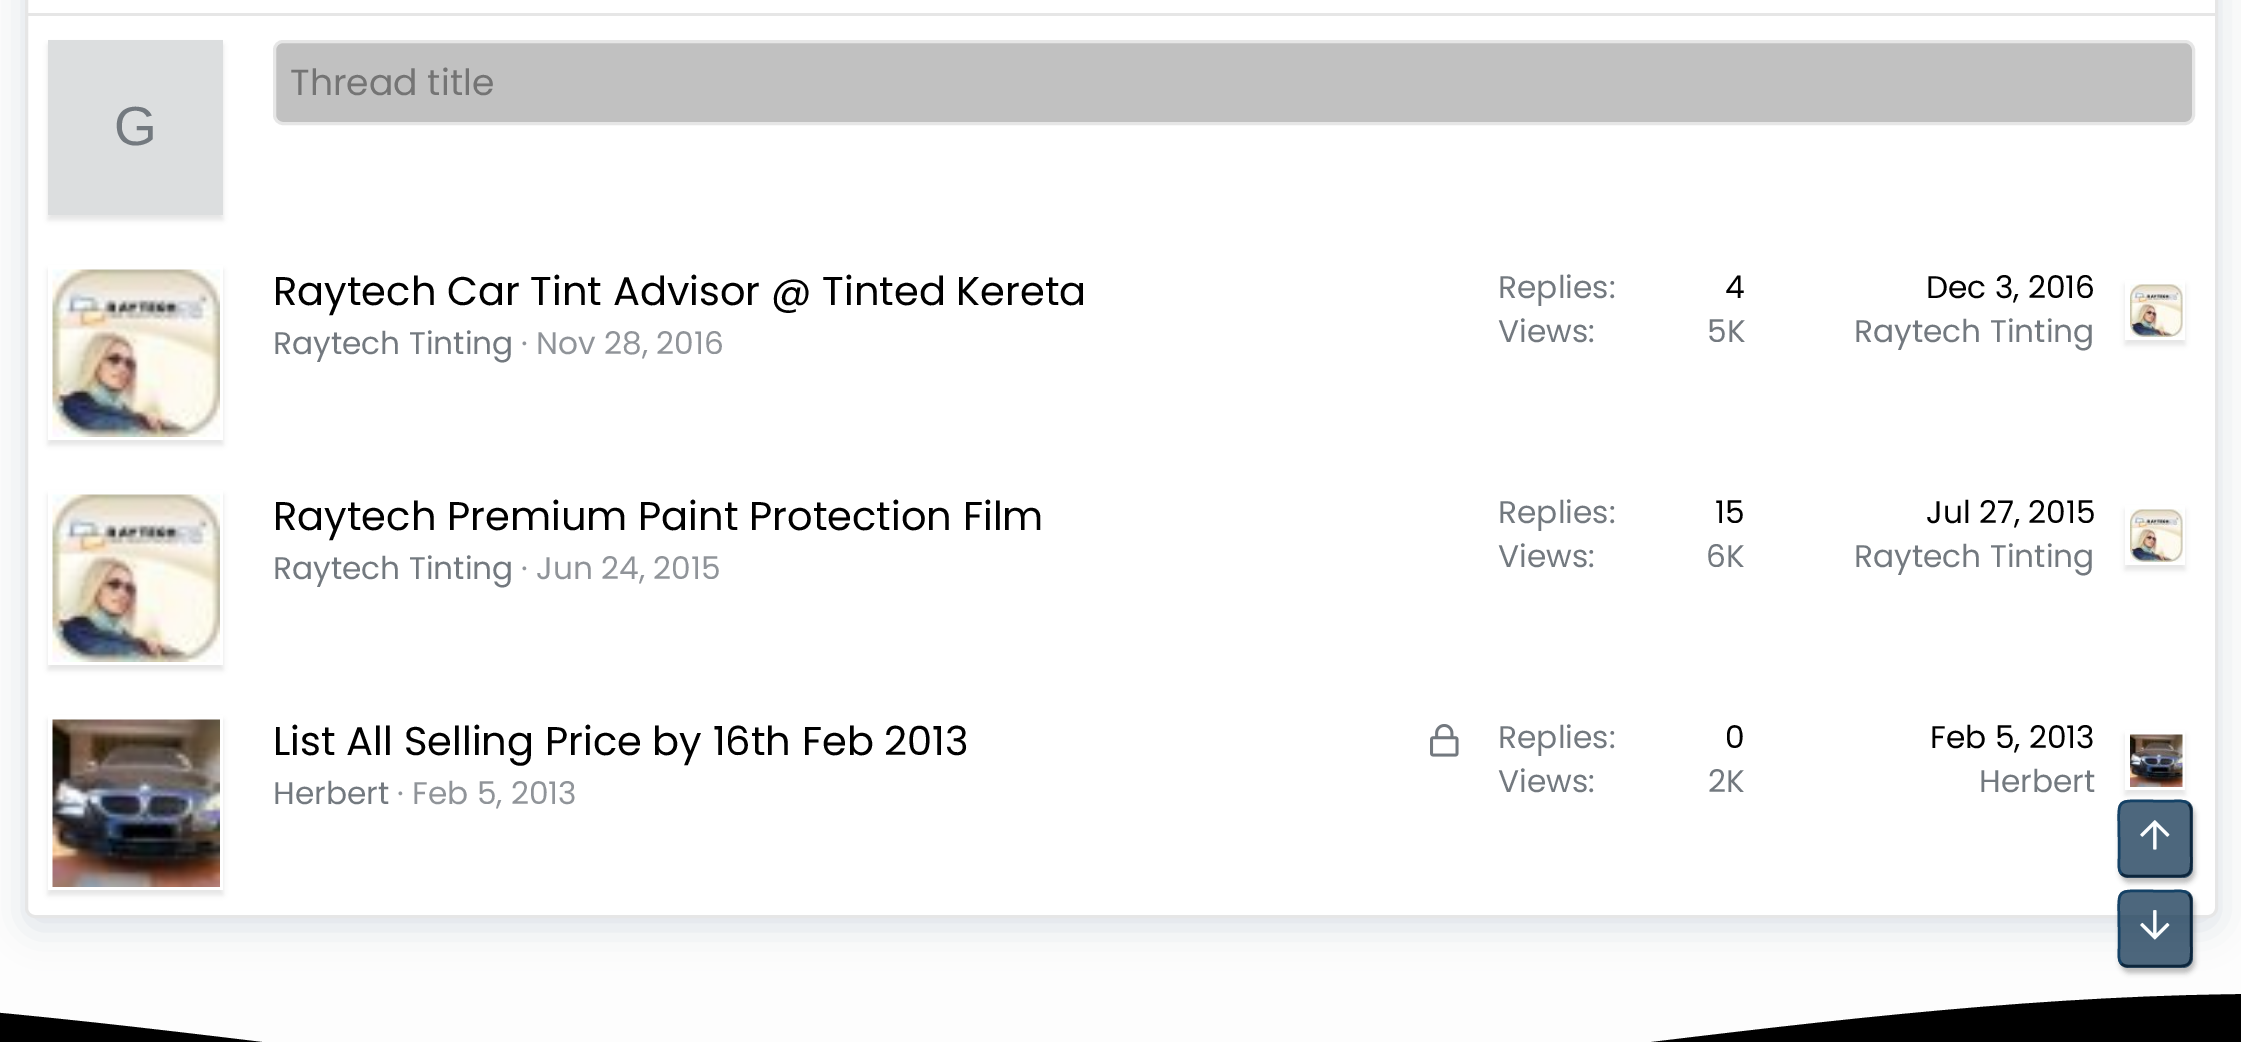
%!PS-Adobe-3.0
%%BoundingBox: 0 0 2241 1042
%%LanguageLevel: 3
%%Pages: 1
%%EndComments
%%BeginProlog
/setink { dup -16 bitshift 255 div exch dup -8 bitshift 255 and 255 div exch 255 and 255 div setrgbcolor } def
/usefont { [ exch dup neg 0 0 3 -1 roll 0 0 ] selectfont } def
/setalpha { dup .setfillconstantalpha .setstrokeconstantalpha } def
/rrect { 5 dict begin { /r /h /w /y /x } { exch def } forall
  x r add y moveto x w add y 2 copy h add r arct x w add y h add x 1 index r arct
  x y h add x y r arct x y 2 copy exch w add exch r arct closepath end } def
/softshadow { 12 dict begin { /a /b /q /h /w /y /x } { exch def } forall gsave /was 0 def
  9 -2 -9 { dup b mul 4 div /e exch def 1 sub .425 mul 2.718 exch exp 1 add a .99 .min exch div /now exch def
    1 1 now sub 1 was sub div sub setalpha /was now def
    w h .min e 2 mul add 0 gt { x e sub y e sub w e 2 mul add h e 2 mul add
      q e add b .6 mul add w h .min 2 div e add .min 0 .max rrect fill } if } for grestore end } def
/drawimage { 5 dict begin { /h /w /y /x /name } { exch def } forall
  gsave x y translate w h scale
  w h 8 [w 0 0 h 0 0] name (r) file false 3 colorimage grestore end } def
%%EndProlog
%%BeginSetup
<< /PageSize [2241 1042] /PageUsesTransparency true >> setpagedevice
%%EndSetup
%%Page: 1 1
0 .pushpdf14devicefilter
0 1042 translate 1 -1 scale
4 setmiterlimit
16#FDFDFD setink
0 0 2241 1042 rectfill
16#586A99 setink
25 -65 2193 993 10 19 0.2 softshadow
16#FFFFFF setink
26.5 -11.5 2190 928 8.5 rrect gsave fill grestore
16#E6E6E6 setink
3 setlinewidth
stroke
28 13 2187 3 rectfill
16#C1C1C1 setink
274.5 41.5 1919 82 8.5 rrect gsave fill grestore
16#E6E6E6 setink
stroke
/Poppins-Regular 36.25 usefont
16#747474 setink
290 95 moveto (Thread title) show
16#000000 setink
48 45 175 175 0 2.5 0.1 softshadow
16#DCDEDF setink
48 40 175 175 rectfill
/LiberationSans-Regular 55 usefont
16#73797F setink
114 145 moveto (G) show
gsave
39 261 moveto 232 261 lineto 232 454 lineto 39 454 lineto closepath 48 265 moveto 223 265 lineto 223 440 lineto 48 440 lineto closepath eoclip newpath
16#000000 setink
48 270 175 175 0 2.5 0.1 softshadow
grestore
(img1.raw) 52 269 168 168 drawimage
/Poppins-Regular 40 usefont
16#000000 setink
273 305 moveto (Raytech Car Tint Advisor @ Tinted Kereta) show
/Poppins-Regular 31.25 usefont
16#73797F setink
273 354 moveto (Raytech Tinting) show
16#909499 setink
521 354 moveto (· Nov 28, 2016) show
16#73797F setink
1498 298 moveto (Replies:) show
16#000000 setink
1725 298 moveto (4) show
16#73797F setink
1498 342 moveto (Views:) show
1707 342 moveto (5K) show
16#000000 setink
1926 298 moveto (Dec 3, 2016) show
16#73797F setink
1854 342 moveto (Raytech Tinting) show
gsave
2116 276 moveto 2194 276 lineto 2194 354 lineto 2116 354 lineto closepath 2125 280 moveto 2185 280 lineto 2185 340 lineto 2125 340 lineto closepath eoclip newpath
16#000000 setink
2125 285 60 60 0 2.5 0.1 softshadow
grestore
(img2.raw) 2130 284 53 53 drawimage
gsave
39 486 moveto 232 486 lineto 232 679 lineto 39 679 lineto closepath 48 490 moveto 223 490 lineto 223 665 lineto 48 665 lineto closepath eoclip newpath
16#000000 setink
48 495 175 175 0 2.5 0.1 softshadow
grestore
(img1.raw) 52 494 168 168 drawimage
/Poppins-Regular 40 usefont
16#000000 setink
273 530 moveto (Raytech Premium Paint Protection Film) show
/Poppins-Regular 31.25 usefont
16#73797F setink
273 579 moveto (Raytech Tinting) show
16#909499 setink
521 579 moveto (· Jun 24, 2015) show
16#73797F setink
1498 523 moveto (Replies:) show
16#000000 setink
1715 523 moveto (15) show
16#73797F setink
1498 567 moveto (Views:) show
1706 567 moveto (6K) show
16#000000 setink
1926 523 moveto (Jul 27, 2015) show
16#73797F setink
1854 567 moveto (Raytech Tinting) show
gsave
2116 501 moveto 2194 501 lineto 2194 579 lineto 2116 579 lineto closepath 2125 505 moveto 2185 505 lineto 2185 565 lineto 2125 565 lineto closepath eoclip newpath
16#000000 setink
2125 510 60 60 0 2.5 0.1 softshadow
grestore
(img2.raw) 2130 509 53 53 drawimage
gsave
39 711 moveto 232 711 lineto 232 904 lineto 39 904 lineto closepath 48 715 moveto 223 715 lineto 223 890 lineto 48 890 lineto closepath eoclip newpath
16#000000 setink
48 720 175 175 0 2.5 0.1 softshadow
grestore
(img3.raw) 52 719 168 168 drawimage
/Poppins-Regular 40 usefont
16#000000 setink
273 755 moveto (List All Selling Price by 16th Feb 2013) show
(img4.raw) 1430 724 29 33 drawimage
/Poppins-Regular 31.25 usefont
16#73797F setink
273 804 moveto (Herbert) show
16#909499 setink
397 804 moveto (· Feb 5, 2013) show
16#73797F setink
1498 748 moveto (Replies:) show
16#000000 setink
1725 748 moveto (0) show
16#73797F setink
1498 792 moveto (Views:) show
1708 792 moveto (2K) show
16#000000 setink
1930 748 moveto (Feb 5, 2013) show
16#73797F setink
1979 792 moveto (Herbert) show
gsave
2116 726 moveto 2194 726 lineto 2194 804 lineto 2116 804 lineto closepath 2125 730 moveto 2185 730 lineto 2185 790 lineto 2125 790 lineto closepath eoclip newpath
16#000000 setink
2125 735 60 60 0 2.5 0.1 softshadow
grestore
(img5.raw) 2130 734 53 53 drawimage
16#000000 setink
-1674 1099 moveto -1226 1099 -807 994 -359 994 curveto 90 994 508 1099 957 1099 curveto 1405 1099 1824 994 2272 994 curveto 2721 994 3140 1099 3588 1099 curveto 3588 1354 lineto -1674 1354 lineto closepath fill
gsave
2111 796 moveto 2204 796 lineto 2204 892 lineto 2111 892 lineto closepath 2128 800 moveto 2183 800 lineto 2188.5 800 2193 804.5 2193 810 curveto 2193 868 lineto 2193 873.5 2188.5 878 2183 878 curveto 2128 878 lineto 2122.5 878 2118 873.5 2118 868 curveto 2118 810 lineto 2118 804.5 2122.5 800 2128 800 curveto closepath eoclip newpath
2120 805 75 78 10 2.5 0.25 softshadow
grestore
0.75 setalpha
16#113451 setink
2118 800 75 78 10 rrect fill
1 setalpha
16#0D263C setink
2.5 setlinewidth
2188.5 804 moveto 2192.5 808 2191 815 2191 819.5 curveto 2191 839 lineto 2191 881.5 2197 876 2155 876 curveto 2136.5 876 lineto 2132 876 2125 877.5 2121.5 873.5 curveto stroke
16#154266 setink
2121.5 873.5 moveto 2117.5 869.5 2119 862.5 2119 858 curveto 2119 839 lineto 2119 796 2113 801 2155 801 curveto 2173.5 801 lineto 2178 801 2185 800 2188.5 804 curveto stroke
(img6.raw) 2140 820 30 30 drawimage
gsave
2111 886 moveto 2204 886 lineto 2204 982 lineto 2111 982 lineto closepath 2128 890 moveto 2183 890 lineto 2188.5 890 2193 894.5 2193 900 curveto 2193 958 lineto 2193 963.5 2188.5 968 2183 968 curveto 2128 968 lineto 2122.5 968 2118 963.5 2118 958 curveto 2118 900 lineto 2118 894.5 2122.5 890 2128 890 curveto closepath eoclip newpath
16#000000 setink
2120 895 75 78 10 2.5 0.25 softshadow
grestore
0.75 setalpha
16#113451 setink
2118 890 75 78 10 rrect fill
1 setalpha
16#0D263C setink
2188.5 894 moveto 2192.5 898 2191 905 2191 909.5 curveto 2191 929 lineto 2191 971.5 2197 966 2155 966 curveto 2136.5 966 lineto 2132 966 2125 967.5 2121.5 963.5 curveto stroke
16#154266 setink
2121.5 963.5 moveto 2117.5 959.5 2119 952.5 2119 948 curveto 2119 929 lineto 2119 886 2113 891 2155 891 curveto 2173.5 891 lineto 2178 891 2185 890 2188.5 894 curveto stroke
(img7.raw) 2140 910 30 30 drawimage
.poppdf14devicefilter showpage
%%EOF
